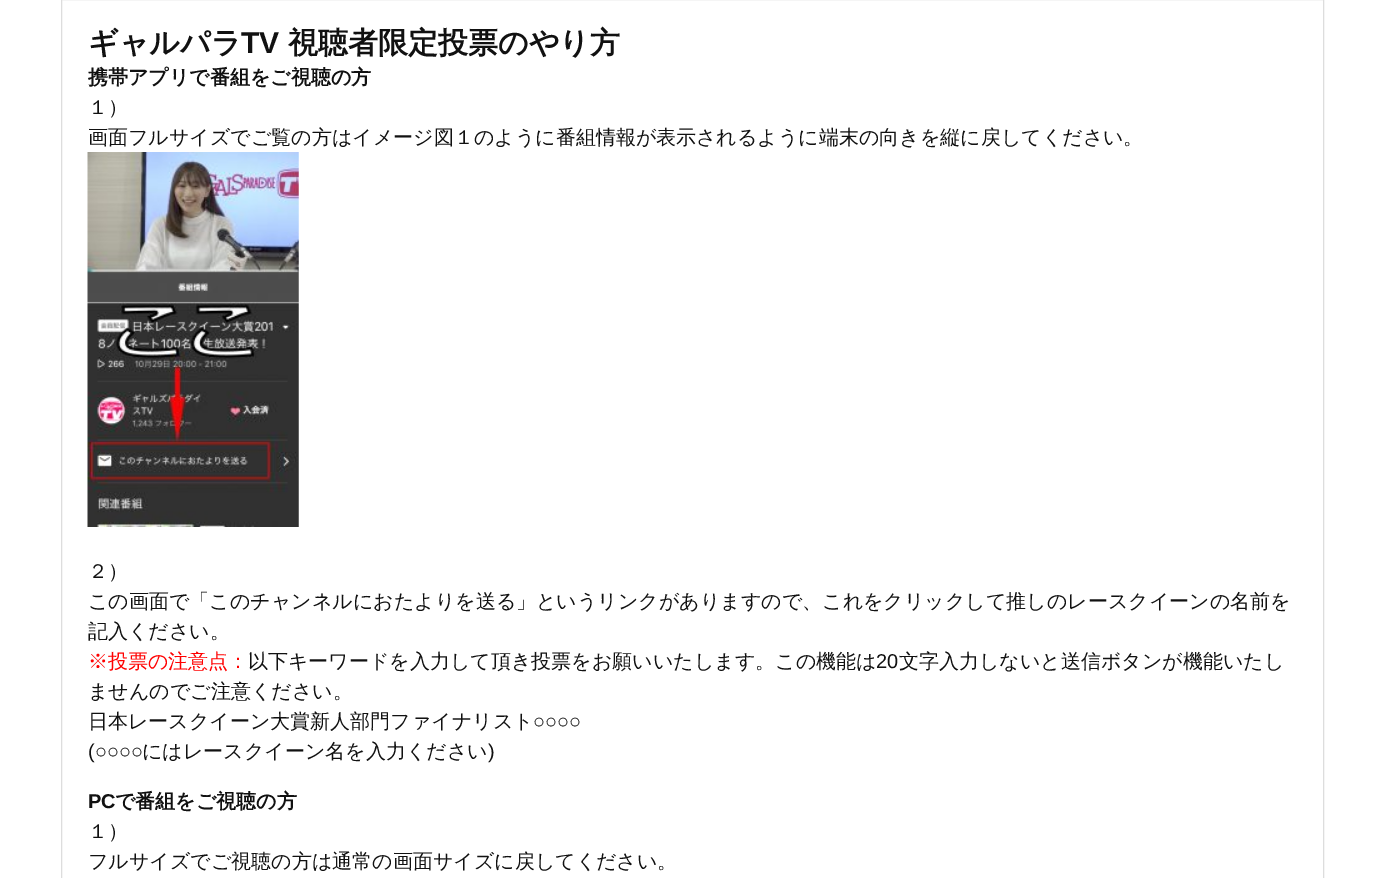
%!PS-Adobe-3.0
%%BoundingBox: 0 0 1384 878
%%LanguageLevel: 3
%%Pages: 1
%%EndComments
%%BeginProlog
/setink { dup -16 bitshift 255 div exch dup -8 bitshift 255 and 255 div exch 255 and 255 div setrgbcolor } def
/usefont { [ exch dup neg 0 0 3 -1 roll 0 0 ] selectfont } def
/drawimage { 5 dict begin { /h /w /y /x /name } { exch def } forall
  gsave x y translate w h scale
  w h 8 [w 0 0 h 0 0] name (r) file false 3 colorimage grestore end } def
%%EndProlog
%%BeginSetup
<< /PageSize [1384 878] >> setpagedevice
%%EndSetup
%%Page: 1 1
0 878 translate 1 -1 scale
4 setmiterlimit
16#FFFFFF setink
0 0 1384 878 rectfill
16#DDDDDD setink
61.5 -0.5 1262 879 rectstroke
/WenQuanYiZenHei-Bold 30 usefont
16#111111 setink
88 53 moveto (ギャルパラ) show
/LiberationSans-Bold 30 usefont
241 53 moveto (TV) show
/WenQuanYiZenHei-Bold 30 usefont
288 53 moveto (視聴者限定投票のやり方) show
/WenQuanYiZenHei-Bold 20 usefont
88 84 moveto (携帯アプリで番組をご視聴の方) show
/WenQuanYiZenHei-Medium 20 usefont
88 114 moveto (１）) show
88 144 moveto (画面フルサイズでご覧の方はイメージ図１のように番組情報が表示されるように端末の向きを縦に戻してください。) show
(img1.raw) 87 152 212 375 drawimage
[
    [(２）) 88 578]
    [(この画面で「このチャンネルにおたよりを送る」というリンクがありますので、これをクリックして推しのレースクイーンの名前を) 88 608]
    [(記入ください。) 88 638]
] { aload pop moveto show } forall
16#FF0000 setink
88 668 moveto (※投票の注意点：) show
16#111111 setink
248 668 moveto (以下キーワードを入力して頂き投票をお願いいたします。この機能は) show
/LiberationSans-Regular 20 usefont
876 668 moveto (20) show
/WenQuanYiZenHei-Medium 20 usefont
[
    [(文字入力しないと送信ボタンが機能いたし) 899 668]
    [(ませんのでご注意ください。) 88 698]
    [(日本レースクイーン大賞新人部門ファイナリスト) 88 728]
] { aload pop moveto show } forall
/LiberationSans-Regular 20 usefont
533 728 moveto (○○○○) show
88 758 moveto (\(○○○○) show
/WenQuanYiZenHei-Medium 20 usefont
142 758 moveto (にはレースクイーン名を入力ください) show
/LiberationSans-Regular 20 usefont
488 758 moveto (\)) show
/LiberationSans-Bold 20 usefont
88 808 moveto (PC) show
/WenQuanYiZenHei-Bold 20 usefont
115 808 moveto (で番組をご視聴の方) show
/WenQuanYiZenHei-Medium 20 usefont
88 838 moveto (１）) show
88 868 moveto (フルサイズでご視聴の方は通常の画面サイズに戻してください。) show
showpage
%%EOF
